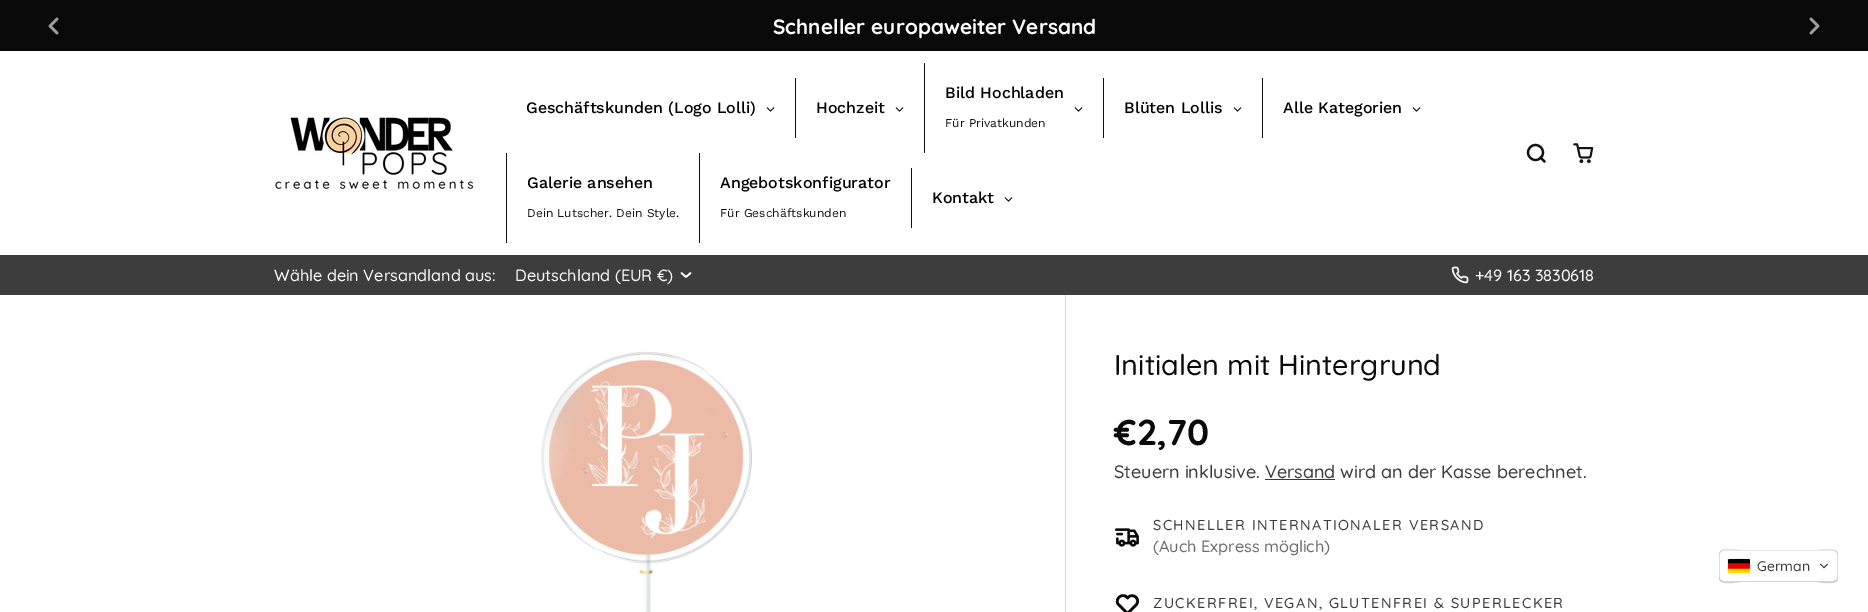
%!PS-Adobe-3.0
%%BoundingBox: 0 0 1868 612
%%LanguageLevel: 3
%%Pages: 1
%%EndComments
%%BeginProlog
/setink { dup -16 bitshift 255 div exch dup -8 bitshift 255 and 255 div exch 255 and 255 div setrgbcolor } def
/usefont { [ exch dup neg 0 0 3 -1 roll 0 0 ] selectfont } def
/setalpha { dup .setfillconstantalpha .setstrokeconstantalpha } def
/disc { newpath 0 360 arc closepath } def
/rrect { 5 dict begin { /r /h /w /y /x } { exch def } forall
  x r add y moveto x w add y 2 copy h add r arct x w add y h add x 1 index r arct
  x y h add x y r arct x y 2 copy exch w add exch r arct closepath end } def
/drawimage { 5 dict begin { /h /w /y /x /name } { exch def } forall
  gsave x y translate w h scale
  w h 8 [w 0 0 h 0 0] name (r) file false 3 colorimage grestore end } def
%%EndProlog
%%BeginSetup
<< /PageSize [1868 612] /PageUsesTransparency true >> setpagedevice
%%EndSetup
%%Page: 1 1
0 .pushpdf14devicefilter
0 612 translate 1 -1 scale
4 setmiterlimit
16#FFFFFF setink
0 0 1868 612 rectfill
16#0A0909 setink
0 0 1868 51 rectfill
16#9D9D9D setink
2.6 setlinewidth
1 setlinecap
1 setlinejoin
57 33 moveto 50 26 lineto 57 19 lineto stroke
/Quicksand-Bold 20.75 usefont
16#FFFFFF setink
773 34 moveto (Schneller europaweiter Versand) show
16#9D9D9D setink
1811 33 moveto 1818 26 lineto 1811 19 lineto stroke
(img1.raw) 275 117 199 72 drawimage
/WorkSans-Medium 16 usefont
16#000000 setink
526 113 moveto (Geschäftskunden \(Logo Lolli\)) show
(img2.raw) 766 107 9 5 drawimage
16#0F0F0F setink
795 78 1 60 rectfill
16#000000 setink
816 113 moveto (Hochzeit) show
(img2.raw) 895 107 9 5 drawimage
16#0F0F0F setink
924 63 1 90 rectfill
16#000000 setink
945 98 moveto (Bild Hochladen) show
/WorkSans-Regular 12 usefont
16#121111 setink
945 127 moveto (Für Privatkunden) show
(img2.raw) 1074 107 9 5 drawimage
16#0F0F0F setink
1103 78 1 60 rectfill
/WorkSans-Medium 16 usefont
16#000000 setink
1124 113 moveto (Blüten Lollis) show
(img2.raw) 1233 107 9 5 drawimage
16#0F0F0F setink
1262 78 1 60 rectfill
16#000000 setink
1283 113 moveto (Alle Kategorien) show
(img2.raw) 1412 107 9 5 drawimage
16#0F0F0F setink
506 153 1 90 rectfill
16#000000 setink
527 188 moveto (Galerie ansehen) show
/WorkSans-Regular 12 usefont
16#121111 setink
527 217 moveto (Dein Lutscher. Dein Style.) show
16#0F0F0F setink
699 153 1 90 rectfill
/WorkSans-Medium 16 usefont
16#000000 setink
720 188 moveto (Angebotskonfigurator) show
/WorkSans-Regular 12 usefont
16#121111 setink
720 217 moveto (Für Geschäftskunden) show
16#0F0F0F setink
911 168 1 60 rectfill
/WorkSans-Medium 16 usefont
16#000000 setink
932 203 moveto (Kontakt) show
(img2.raw) 1004 197 9 5 drawimage
16#111212 setink
2.2 setlinewidth
0 setlinecap
0 setlinejoin
1535.5 152.5 7.5 disc stroke
1 setlinecap
1 setlinejoin
1544.5 161.5 moveto 1540.5 157.5 lineto stroke
(img3.raw) 1573 143 21 21 drawimage
16#3D3D3D setink
0 255 1868 40 rectfill
/Quicksand-Medium 16.25 usefont
16#FFFFFF setink
274 281 moveto (Wähle dein Versandland aus:) show
515 281 moveto (Deutschland \(EUR €\)) show
1.7 setlinewidth
681.5 273 moveto 686 277 lineto 690.5 273 lineto stroke
(img4.raw) 1451 266 18 18 drawimage
1475 281 moveto (+49 163 3830618) show
16#D9D9D9 setink
1065 295 1 317 rectfill
(img5.raw) 541 351 211 261 drawimage
/Quicksand-Medium 28.75 usefont
16#0A0A0A setink
1114 375 moveto (Initialen mit Hintergrund) show
/Quicksand-Bold 36 usefont
1114 445 moveto (€2,70) show
/Quicksand-Medium 18 usefont
16#3B3B3B setink
1114 478 moveto (Steuern inklusive. Versand wird an der Kasse berechnet.) show
1265 479 70 1 rectfill
(img6.raw) 1115 528 24 19 drawimage
/Quicksand-Medium 14.4 usefont
1153 530 moveto 1.45 0 (SCHNELLER INTERNATIONALER VERSAND) ashow
/Quicksand-Medium 16.25 usefont
16#6C6C6C setink
1153 552 moveto (\(Auch Express möglich\)) show
16#0A0A0A setink
2.6 setlinewidth
1136 605 moveto 1127.5 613.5 lineto 1118 604 lineto 1114.5 598 1123.5 592 1127.5 598 curveto 1132.5 591.5 1141.5 599.5 1136 605 curveto stroke
/Quicksand-Medium 14.4 usefont
16#3B3B3B setink
1153 608 moveto 1.45 0 (ZUCKERFREI, VEGAN, GLUTENFREI & SUPERLECKER) ashow
16#E6E6E6 setink
1723 551 moveto 1834 551 lineto 1836 551 1838 553 1838 555 curveto 1838 545 1819 550 1816 550 curveto 1742 550 lineto 1738 550 1719 545 1719 555 curveto 1719 553 1721 551 1723 551 curveto closepath fill
16#D4D4D4 setink
1719 577 moveto 1719 587 1738 582 1742 582 curveto 1816 582 lineto 1819 582 1838 587 1838 577 curveto 1838 579 1836 581 1834 581 curveto 1723 581 lineto 1721 581 1719 579 1719 577 curveto closepath fill
0.13 setalpha
16#000000 setink
1833 582 moveto 1838.5 582 1838 578.5 1838 574 curveto 1838 558 lineto 1838 553.5 1838.5 550 1833 550 curveto 1835 550 1837 552 1837 554 curveto 1837 578 lineto 1837 580 1835 582 1833 582 curveto closepath fill
1723 550 moveto 1721 550 1719 552 1719 554 curveto 1719 578 lineto 1719 580 1721 582 1723 582 curveto 1724 582 lineto 1722 582 1720 580 1720 578 curveto 1720 554 lineto 1720 552 1722 550 1724 550 curveto closepath fill
1 setalpha
16#F0F1F2 setink
1 setlinewidth
0 setlinecap
0 setlinejoin
1727.5 558.5 23 15 1.5 rrect stroke
(img7.raw) 1728 559 22 14 drawimage
/Quicksand-Medium 14 usefont
16#3B3B3B setink
1757 571 moveto (German) show
(img8.raw) 1820 563 8 6 drawimage
.poppdf14devicefilter showpage
%%EOF
